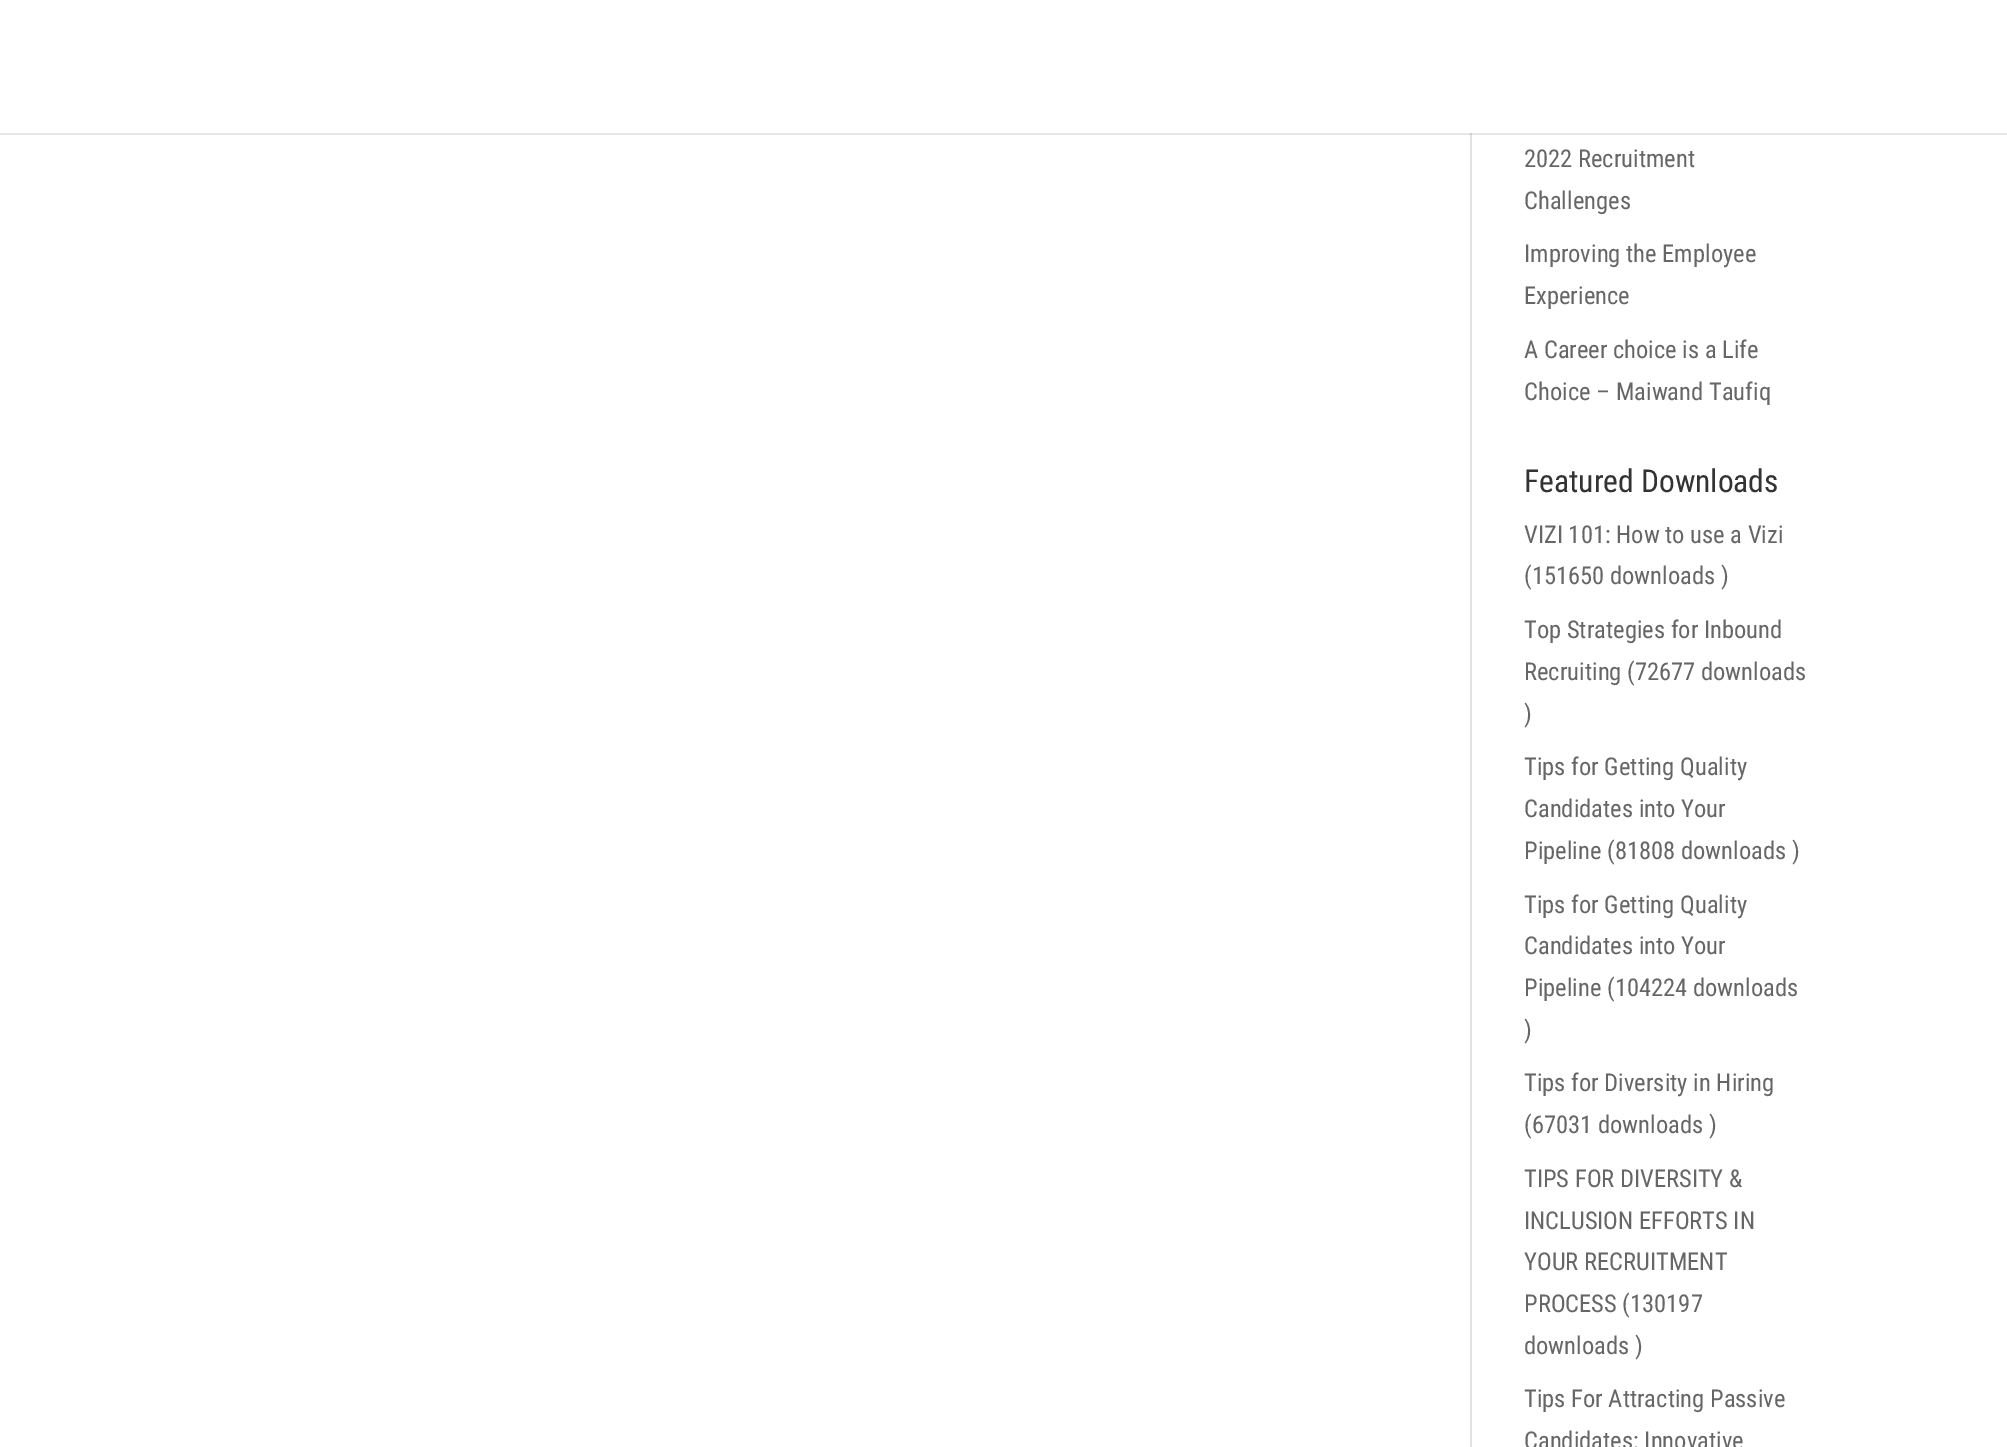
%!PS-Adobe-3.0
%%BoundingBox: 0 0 2007 1447
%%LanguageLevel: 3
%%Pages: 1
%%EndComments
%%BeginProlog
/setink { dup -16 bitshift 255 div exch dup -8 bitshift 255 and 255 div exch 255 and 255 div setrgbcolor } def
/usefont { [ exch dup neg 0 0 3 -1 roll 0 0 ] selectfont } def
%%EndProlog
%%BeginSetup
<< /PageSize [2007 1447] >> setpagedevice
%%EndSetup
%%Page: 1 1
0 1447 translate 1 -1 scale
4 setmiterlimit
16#FFFFFF setink
0 0 2007 1447 rectfill
[
    [0 133 2007 2 16#E6E6E6]
    [1470 135 2 1312 16#E2E2E2]
    [1470 133 2 2 16#CBCBCB]
] { aload pop setink rectfill } forall
/RobotoCondensed-Regular 24.5 usefont
16#666666 setink
[
    [(2022 Recruitment) 1524 167]
    [(Challenges) 1524 209]
    [(Improving the Employee) 1524 262]
    [(Experience) 1524 304]
    [(A Career choice is a Life) 1524 358]
    [(Choice – Maiwand Taufiq) 1524 400]
] { aload pop moveto show } forall
/RobotoCondensed-Regular 31.5 usefont
16#333333 setink
1524 492 moveto (Featured Downloads) show
/RobotoCondensed-Regular 24.5 usefont
16#666666 setink
[
    [(VIZI 101: How to use a Vizi) 1524 543]
    [(\(151650 downloads \)) 1524 584]
    [(Top Strategies for Inbound) 1524 638]
    [(Recruiting \(72677 downloads) 1524 680]
    [(\)) 1524 722]
    [(Tips for Getting Quality) 1524 775]
    [(Candidates into Your) 1524 817]
    [(Pipeline \(81808 downloads \)) 1524 859]
    [(Tips for Getting Quality) 1524 913]
    [(Candidates into Your) 1524 954]
    [(Pipeline \(104224 downloads) 1524 996]
    [(\)) 1524 1038]
    [(Tips for Diversity in Hiring) 1524 1091]
    [(\(67031 downloads \)) 1524 1133]
    [(TIPS FOR DIVERSITY &) 1524 1187]
    [(INCLUSION EFFORTS IN) 1524 1229]
    [(YOUR RECRUITMENT) 1524 1270]
    [(PROCESS \(130197) 1524 1312]
    [(downloads \)) 1524 1354]
    [(Tips For Attracting Passive) 1524 1407]
    [(Candidates: Innovative) 1524 1449]
] { aload pop moveto show } forall
showpage
%%EOF
